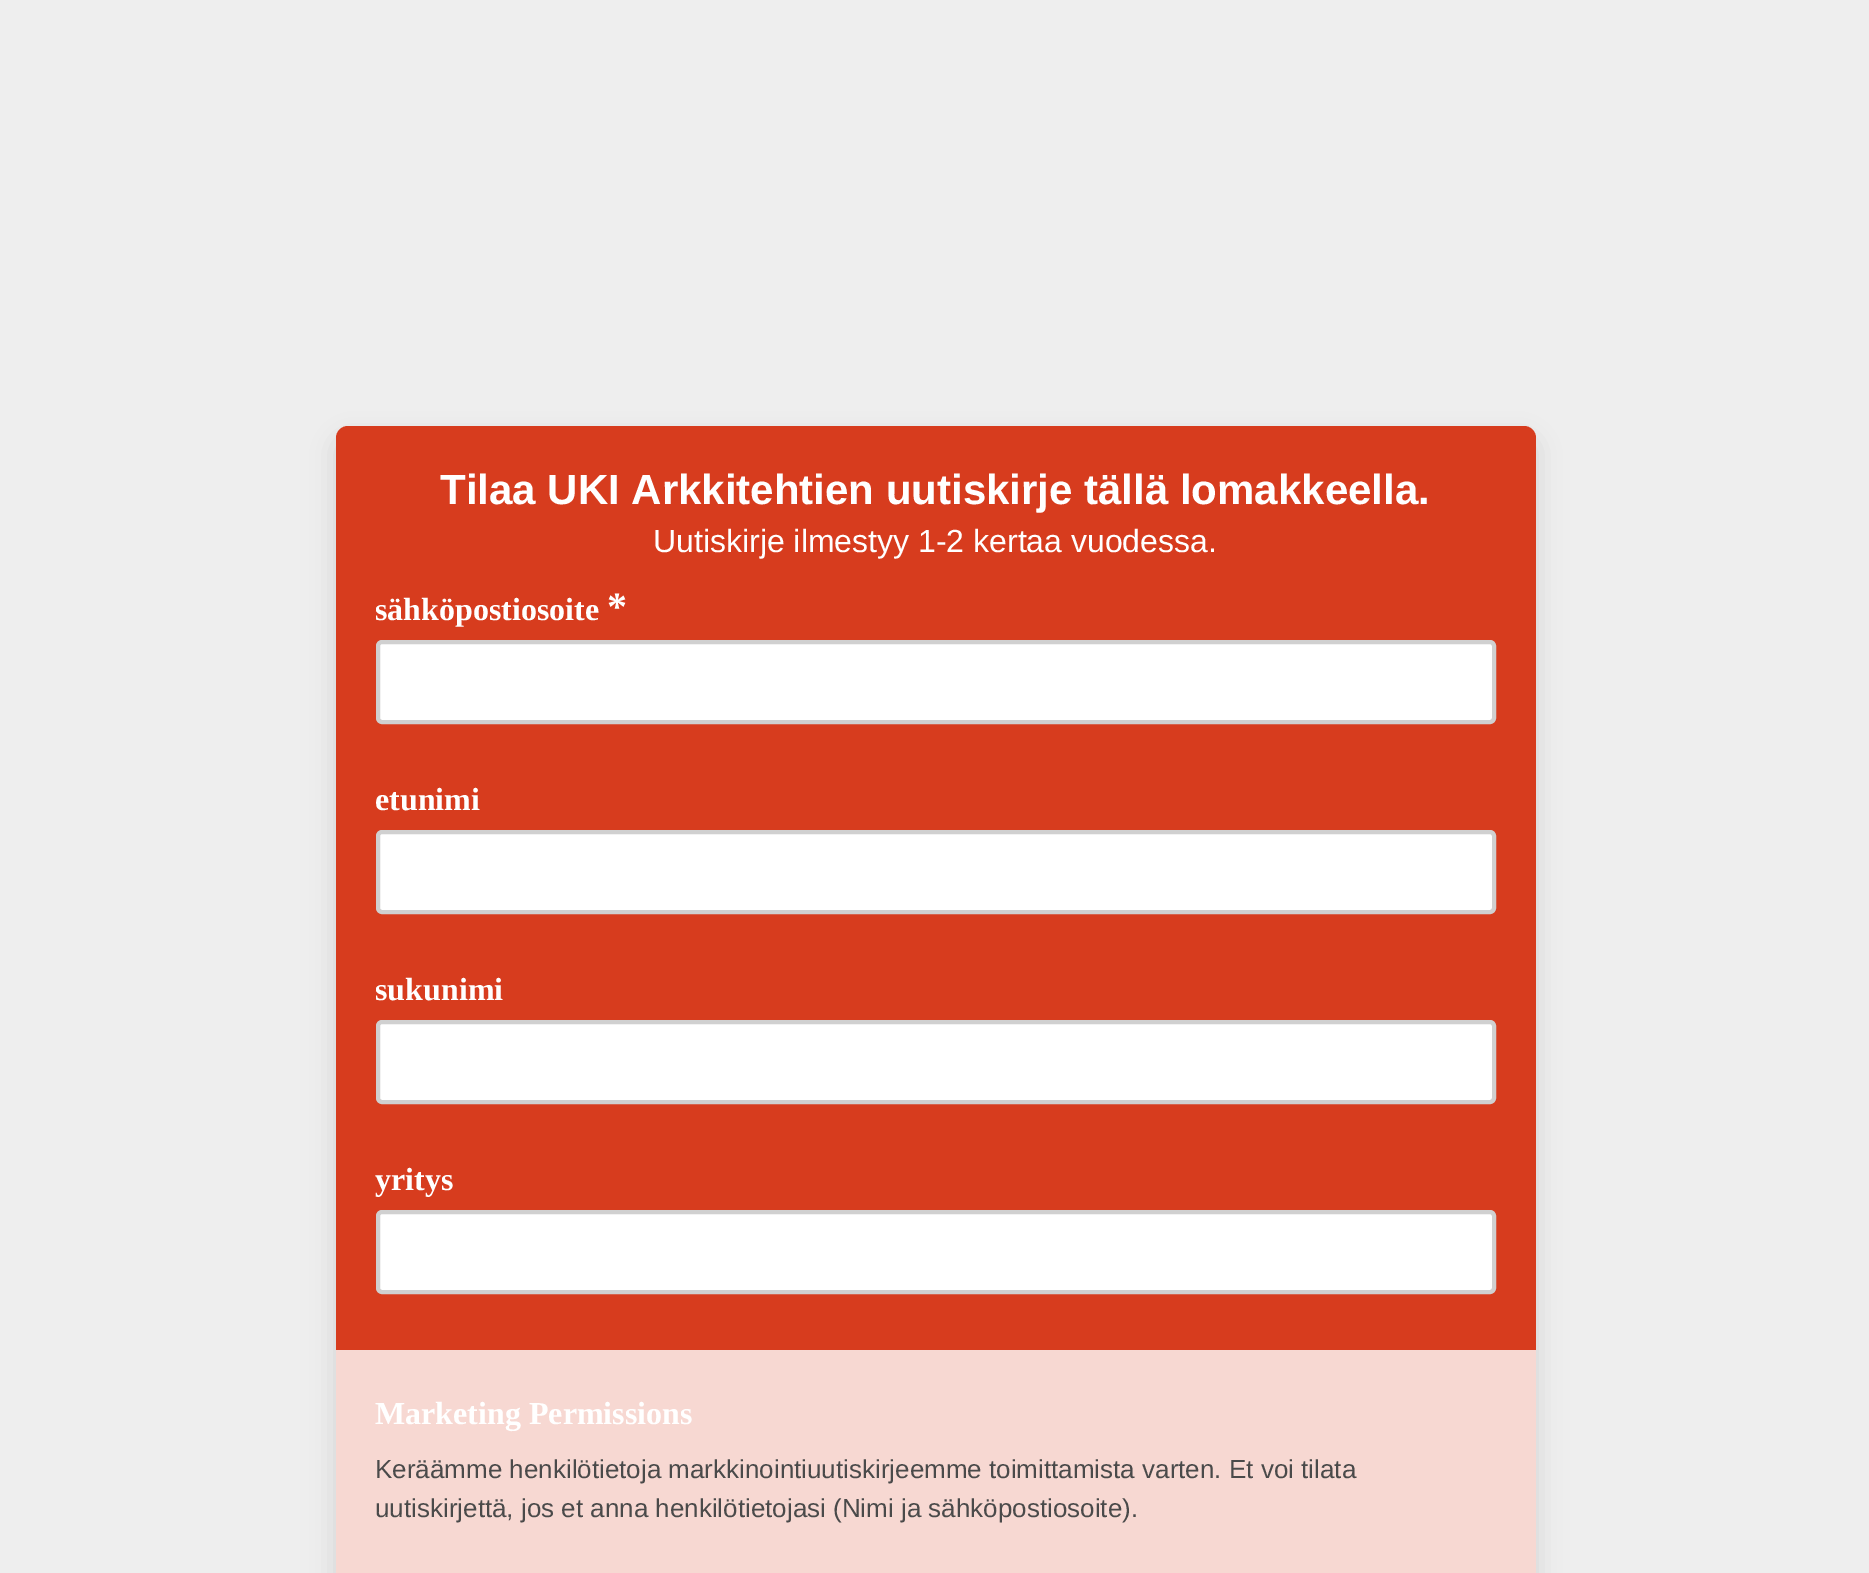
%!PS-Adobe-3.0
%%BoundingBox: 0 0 1869 1573
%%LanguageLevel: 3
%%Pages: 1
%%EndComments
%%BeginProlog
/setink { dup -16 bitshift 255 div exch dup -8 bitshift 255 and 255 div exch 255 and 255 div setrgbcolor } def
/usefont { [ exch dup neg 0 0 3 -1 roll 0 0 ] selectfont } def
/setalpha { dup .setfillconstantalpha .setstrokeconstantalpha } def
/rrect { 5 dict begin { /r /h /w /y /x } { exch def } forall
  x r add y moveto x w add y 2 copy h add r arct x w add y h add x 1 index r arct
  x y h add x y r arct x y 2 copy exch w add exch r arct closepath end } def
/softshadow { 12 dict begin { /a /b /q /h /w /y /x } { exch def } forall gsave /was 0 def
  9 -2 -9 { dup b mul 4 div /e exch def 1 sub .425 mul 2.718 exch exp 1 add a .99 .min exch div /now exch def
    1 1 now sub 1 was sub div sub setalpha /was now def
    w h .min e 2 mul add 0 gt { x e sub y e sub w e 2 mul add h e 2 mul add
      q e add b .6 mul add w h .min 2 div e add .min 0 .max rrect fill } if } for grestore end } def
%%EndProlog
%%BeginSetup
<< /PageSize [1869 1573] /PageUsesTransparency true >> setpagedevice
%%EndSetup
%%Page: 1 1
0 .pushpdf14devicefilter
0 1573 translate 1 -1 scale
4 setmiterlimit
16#EEEEEE setink
0 0 1869 1573 rectfill
16#0D1216 setink
336 438 1200 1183 12 12 0.12 softshadow
16#D73C1E setink
336 426 1200 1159 12 rrect fill
/LiberationSans-Bold 42 usefont
16#FFFFFF setink
440 504 moveto (Tilaa UKI Arkkitehtien uutiskirje tällä lomakkeella.) show
/LiberationSans-Regular 32 usefont
653 552 moveto (Uutiskirje ilmestyy 1-2 kertaa vuodessa.) show
/LiberationSerif-Bold 32 usefont
375 620 moveto (sähköpostiosoite) show
/LiberationSerif-Bold 40 usefont
607 620 moveto (*) show
378 642 1116 80 4 rrect gsave fill grestore
16#D0D0D0 setink
4 setlinewidth
stroke
/LiberationSerif-Bold 32 usefont
16#FFFFFF setink
375 810 moveto (etunimi) show
378 832 1116 80 4 rrect gsave fill grestore
16#D0D0D0 setink
stroke
16#FFFFFF setink
375 1000 moveto (sukunimi) show
378 1022 1116 80 4 rrect gsave fill grestore
16#D0D0D0 setink
stroke
16#FFFFFF setink
375 1190 moveto (yritys) show
378 1212 1116 80 4 rrect gsave fill grestore
16#D0D0D0 setink
stroke
16#F7D8D2 setink
336 1350 1200 223 rectfill
16#FFFFFF setink
375 1424 moveto (Marketing Permissions) show
/LiberationSans-Regular 26 usefont
16#4A4A4A setink
375 1478 moveto (Keräämme henkilötietoja markkinointiuutiskirjeemme toimittamista varten. Et voi tilata) show
375 1517 moveto (uutiskirjettä, jos et anna henkilötietojasi \(Nimi ja sähköpostiosoite\).) show
.poppdf14devicefilter showpage
%%EOF
